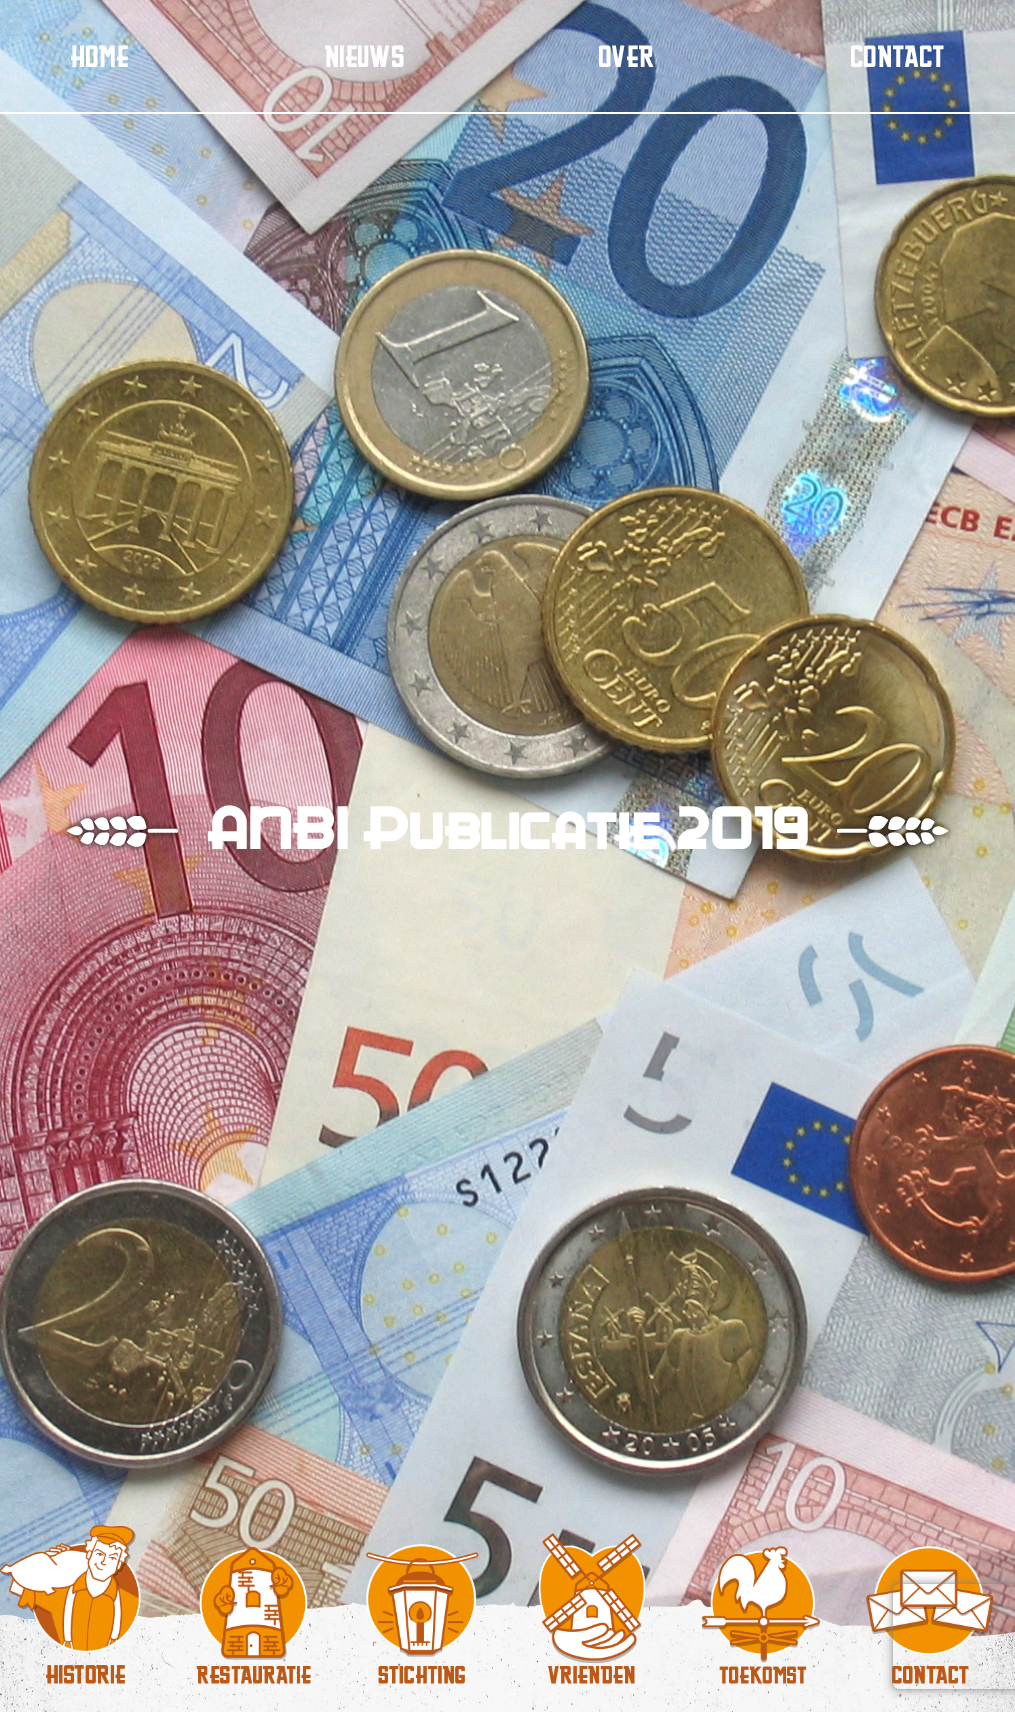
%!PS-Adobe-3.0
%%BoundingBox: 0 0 1015 1712
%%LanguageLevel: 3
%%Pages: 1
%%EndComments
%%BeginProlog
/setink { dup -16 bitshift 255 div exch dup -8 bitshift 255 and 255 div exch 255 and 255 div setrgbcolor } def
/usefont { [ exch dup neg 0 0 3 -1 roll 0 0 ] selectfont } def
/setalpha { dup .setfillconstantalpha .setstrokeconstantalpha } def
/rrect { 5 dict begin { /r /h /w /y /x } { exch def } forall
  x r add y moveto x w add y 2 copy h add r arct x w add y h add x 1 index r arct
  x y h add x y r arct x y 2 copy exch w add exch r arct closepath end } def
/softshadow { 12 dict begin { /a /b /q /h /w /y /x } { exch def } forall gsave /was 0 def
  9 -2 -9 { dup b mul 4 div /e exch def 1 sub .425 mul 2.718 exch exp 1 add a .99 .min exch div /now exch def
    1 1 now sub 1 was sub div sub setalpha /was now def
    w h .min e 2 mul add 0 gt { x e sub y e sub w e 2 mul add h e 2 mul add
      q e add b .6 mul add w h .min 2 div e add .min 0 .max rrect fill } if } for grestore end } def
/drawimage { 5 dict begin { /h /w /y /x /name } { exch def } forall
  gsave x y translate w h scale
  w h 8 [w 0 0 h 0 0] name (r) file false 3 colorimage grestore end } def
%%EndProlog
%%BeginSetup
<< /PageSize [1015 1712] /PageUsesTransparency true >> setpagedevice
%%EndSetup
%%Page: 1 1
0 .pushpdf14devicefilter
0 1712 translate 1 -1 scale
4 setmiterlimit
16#FFFFFF setink
0 0 1015 1712 rectfill
(img1.raw) 0 0 1015 1637 drawimage
0 112 1015 2 rectfill
/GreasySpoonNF-Regular 28 usefont
[
    [(HOME) 70 67]
    [(NIEUWS) 324 67]
    [(OVER) 598 67]
    [(CONTACT) 850 67]
] { aload pop moveto show } forall
(img2.raw) 62 810 121 43 drawimage
/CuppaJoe-Regular 58.75 usefont
[
    [(ANBI) 206 849]
    [(Publicatie) 363 849]
    [(2019) 676 849]
] { aload pop moveto show } forall
(img3.raw) 832 810 121 42 drawimage
(img4.raw) 0 1599 1015 113 drawimage
(img5.raw) 0 1525 141 159 drawimage
(img6.raw) 196 1547 115 137 drawimage
(img7.raw) 366 1544 113 140 drawimage
(img8.raw) 538 1533 108 151 drawimage
(img9.raw) 702 1546 118 138 drawimage
(img10.raw) 866 1546 128 138 drawimage
gsave
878 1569 moveto 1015 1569 lineto 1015 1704 lineto 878 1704 lineto closepath 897 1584 moveto 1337 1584 lineto 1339 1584 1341 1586 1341 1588 curveto 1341 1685 lineto 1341 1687 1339 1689 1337 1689 curveto 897 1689 lineto 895 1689 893 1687 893 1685 curveto 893 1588 lineto 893 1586 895 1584 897 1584 curveto closepath eoclip newpath
16#808080 setink
893 1584 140 105 4 4.5 1 softshadow
grestore
.poppdf14devicefilter showpage
%%EOF
